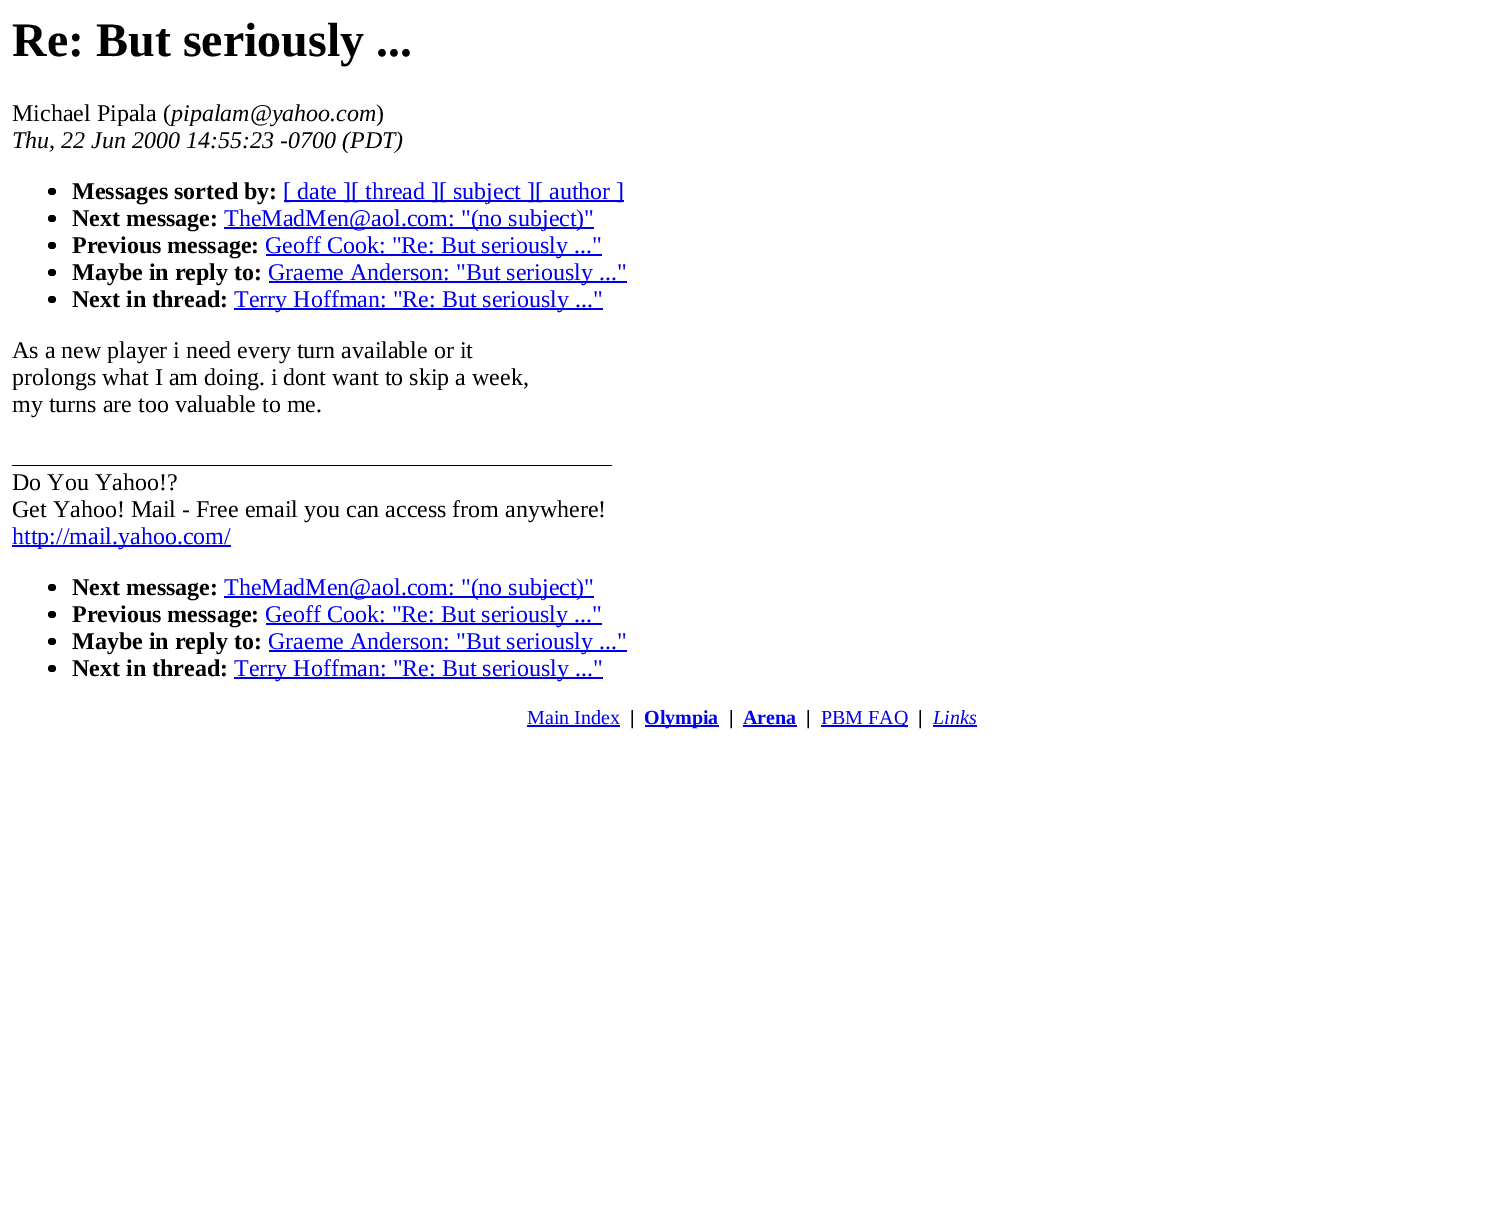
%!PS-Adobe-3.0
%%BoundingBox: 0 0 1502 1207
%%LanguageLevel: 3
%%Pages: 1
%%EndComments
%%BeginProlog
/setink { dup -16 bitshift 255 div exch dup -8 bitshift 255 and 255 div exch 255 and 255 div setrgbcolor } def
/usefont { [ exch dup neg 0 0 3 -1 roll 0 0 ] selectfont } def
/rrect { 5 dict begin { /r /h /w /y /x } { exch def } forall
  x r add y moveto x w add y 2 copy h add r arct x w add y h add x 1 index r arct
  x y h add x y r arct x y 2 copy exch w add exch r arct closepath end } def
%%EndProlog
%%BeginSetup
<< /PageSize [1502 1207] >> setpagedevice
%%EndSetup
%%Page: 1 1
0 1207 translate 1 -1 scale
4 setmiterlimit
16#FFFFFF setink
0 0 1502 1207 rectfill
/LiberationSerif-Bold 48 usefont
16#000000 setink
12 56 moveto (Re: But seriously ...) show
/LiberationSerif-Regular 24 usefont
12 121 moveto (Michael Pipala \() show
/LiberationSerif-Italic 24 usefont
171 121 moveto (pipalam@yahoo.com) show
/LiberationSerif-Regular 24 usefont
376 121 moveto (\)) show
/LiberationSerif-Italic 24 usefont
12 148 moveto (Thu, 22 Jun 2000 14:55:23 -0700 \(PDT\)) show
48 188 8 7 3.5 rrect fill
/LiberationSerif-Bold 24 usefont
72 199 moveto (Messages sorted by:) show
16#0000EE setink
284 200 340 2 rectfill
/LiberationSerif-Regular 24 usefont
283 199 moveto ([ date ][ thread ][ subject ][ author ]) show
16#000000 setink
48 215 8 7 3.5 rrect fill
/LiberationSerif-Bold 24 usefont
72 226 moveto (Next message:) show
16#0000EE setink
224 227 370 2 rectfill
/LiberationSerif-Regular 24 usefont
224 226 moveto (TheMadMen@aol.com: "\(no subject\)") show
16#000000 setink
48 242 8 7 3.5 rrect fill
/LiberationSerif-Bold 24 usefont
72 253 moveto (Previous message:) show
16#0000EE setink
266 254 336 2 rectfill
/LiberationSerif-Regular 24 usefont
265 253 moveto (Geoff Cook: "Re: But seriously ...") show
16#000000 setink
48 269 8 7 3.5 rrect fill
/LiberationSerif-Bold 24 usefont
72 280 moveto (Maybe in reply to:) show
16#0000EE setink
269 281 358 2 rectfill
/LiberationSerif-Regular 24 usefont
268 280 moveto (Graeme Anderson: "But seriously ...") show
16#000000 setink
48 296 8 7 3.5 rrect fill
/LiberationSerif-Bold 24 usefont
72 307 moveto (Next in thread:) show
16#0000EE setink
234 308 369 2 rectfill
/LiberationSerif-Regular 24 usefont
234 307 moveto (Terry Hoffman: "Re: But seriously ...") show
16#000000 setink
[
    [(As a new player i need every turn available or it) 12 358]
    [(prolongs what I am doing. i dont want to skip a week,) 12 385]
    [(my turns are too valuable to me.) 12 412]
    [(__________________________________________________) 12 463]
    [(Do You Yahoo!?) 12 490]
    [(Get Yahoo! Mail - Free email you can access from anywhere!) 12 517]
] { aload pop moveto show } forall
16#0000EE setink
12 545 219 2 rectfill
12 544 moveto (http://mail.yahoo.com/) show
16#000000 setink
48 584 8 7 3.5 rrect fill
/LiberationSerif-Bold 24 usefont
72 595 moveto (Next message:) show
16#0000EE setink
224 596 370 2 rectfill
/LiberationSerif-Regular 24 usefont
224 595 moveto (TheMadMen@aol.com: "\(no subject\)") show
16#000000 setink
48 611 8 7 3.5 rrect fill
/LiberationSerif-Bold 24 usefont
72 622 moveto (Previous message:) show
16#0000EE setink
266 623 336 2 rectfill
/LiberationSerif-Regular 24 usefont
265 622 moveto (Geoff Cook: "Re: But seriously ...") show
16#000000 setink
48 638 8 7 3.5 rrect fill
/LiberationSerif-Bold 24 usefont
72 649 moveto (Maybe in reply to:) show
16#0000EE setink
269 650 358 2 rectfill
/LiberationSerif-Regular 24 usefont
268 649 moveto (Graeme Anderson: "But seriously ...") show
16#000000 setink
48 665 8 7 3.5 rrect fill
/LiberationSerif-Bold 24 usefont
72 676 moveto (Next in thread:) show
16#0000EE setink
234 677 369 2 rectfill
/LiberationSerif-Regular 24 usefont
234 676 moveto (Terry Hoffman: "Re: But seriously ...") show
/LiberationSerif-Regular 20 usefont
527 724 moveto (Main Index) show
527 725 93 2 rectfill
/LiberationSerif-Bold 20 usefont
16#000000 setink
630 724 moveto (|) show
16#0000EE setink
645 725 74 2 rectfill
644 724 moveto (Olympia) show
16#000000 setink
729 724 moveto (|) show
16#0000EE setink
743 724 moveto (Arena) show
743 725 54 2 rectfill
16#000000 setink
806 724 moveto (|) show
16#0000EE setink
821 725 87 2 rectfill
/LiberationSerif-Regular 20 usefont
821 724 moveto (PBM FAQ) show
/LiberationSerif-Bold 20 usefont
16#000000 setink
918 724 moveto (|) show
/LiberationSerif-Italic 20 usefont
16#0000EE setink
933 724 moveto (Links) show
933 725 44 2 rectfill
showpage
%%EOF
